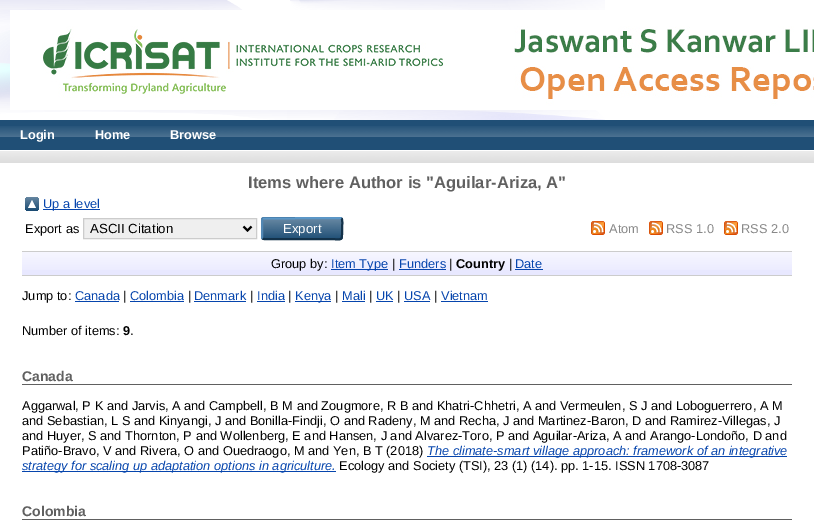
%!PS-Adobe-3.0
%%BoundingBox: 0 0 814 530
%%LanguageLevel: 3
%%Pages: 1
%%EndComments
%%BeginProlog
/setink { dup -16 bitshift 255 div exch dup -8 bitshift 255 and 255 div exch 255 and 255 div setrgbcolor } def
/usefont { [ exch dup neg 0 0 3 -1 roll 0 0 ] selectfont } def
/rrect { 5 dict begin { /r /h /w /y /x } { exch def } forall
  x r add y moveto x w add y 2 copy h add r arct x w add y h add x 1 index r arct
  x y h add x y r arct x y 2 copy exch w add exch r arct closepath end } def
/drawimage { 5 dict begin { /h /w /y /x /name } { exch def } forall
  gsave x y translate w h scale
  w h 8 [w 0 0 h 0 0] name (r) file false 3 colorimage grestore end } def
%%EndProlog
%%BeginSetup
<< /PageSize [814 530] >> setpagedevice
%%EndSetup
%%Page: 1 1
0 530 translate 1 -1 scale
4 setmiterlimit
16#FFFFFF setink
0 0 814 530 rectfill
(img1.raw) 0 0 605 120 drawimage
(img2.raw) 10 10 804 100 drawimage
16#204F76 setink
0 120 814 30 rectfill
(img3.raw) 0 126 814 11 drawimage
/LiberationSans-Bold 12.8 usefont
16#FFFFFF setink
[
    [(Login) 20 139]
    [(Home) 95 139]
    [(Browse) 170 139]
] { aload pop moveto show } forall
16#CCCCCC setink
0 151 814 12 rectfill
(img4.raw) 0 151 814 12 drawimage
/LiberationSans-Bold 16.6 usefont
16#606060 setink
248 188 moveto (Items where Author is "Aguilar-Ariza, A") show
(img5.raw) 25 197 14 14 drawimage
16#0645AD setink
43 209 57 1 rectfill
/LiberationSans-Regular 12.8 usefont
43 208 moveto (Up a level) show
16#000000 setink
25 233 moveto (Export as) show
16#EFEFEF setink
83.5 218.5 moveto 256.5 218.5 lineto 256.5 238.5 lineto 83.5 238.5 lineto closepath gsave fill grestore
16#CCCCCC setink
stroke
16#000000 setink
2 setlinewidth
243.5 226.5 moveto 247.5 230.5 lineto 251.5 226.5 lineto stroke
/LiberationSans-Regular 13.25 usefont
90 233 moveto (ASCII Citation) show
16#1F4F76 setink
261 217 82 23 3 rrect fill
(img6.raw) 261 219 82 19 drawimage
16#5B97C7 setink
262.5 218.5 moveto 327.5 218 lineto 340 218 lineto 341.5 218.5 lineto stroke
16#13324A setink
341.5 218.5 moveto 343 220 342 226.5 342 228.5 curveto 342 242.5 343.5 239 327.5 239 curveto 264 239 lineto 262.5 238.5 lineto stroke
16#5287B3 setink
262.5 238.5 moveto 262 238 262 237.5 262 237 curveto 262 220 lineto 262 219.5 262 219 262.5 218.5 curveto stroke
16#FFFFFF setink
283 233 moveto (Export) show
(img7.raw) 591 221 14 14 drawimage
/LiberationSans-Regular 12.8 usefont
16#888888 setink
609 233 moveto (Atom) show
(img7.raw) 649 221 14 14 drawimage
666 233 moveto (RSS 1.0) show
(img7.raw) 724 221 14 14 drawimage
741 233 moveto (RSS 2.0) show
16#E8E8FF setink
22 252 770 23 rectfill
(img8.raw) 22 252 770 18 drawimage
16#CCCCCC setink
22 251 770 1 rectfill
22 275 770 1 rectfill
16#000000 setink
271 268 moveto (Group by:) show
16#0645AD setink
331 269 57 1 rectfill
331 268 moveto (Item Type) show
16#000000 setink
392 268 moveto (|) show
16#0645AD setink
399 268 moveto (Funders) show
399 269 47 1 rectfill
16#000000 setink
449 268 moveto (|) show
/LiberationSans-Bold 12.8 usefont
456 268 moveto (Country) show
/LiberationSans-Regular 12.8 usefont
509 268 moveto (|) show
16#0645AD setink
515 268 moveto (Date) show
515 269 28 1 rectfill
16#000000 setink
22 300 moveto (Jump to:) show
16#0645AD setink
75 300 moveto (Canada) show
75 301 44 1 rectfill
16#000000 setink
123 300 moveto (|) show
16#0645AD setink
130 300 moveto (Colombia) show
130 301 54 1 rectfill
16#000000 setink
188 300 moveto (|) show
16#0645AD setink
194 300 moveto (Denmark) show
194 301 52 1 rectfill
16#000000 setink
250 300 moveto (|) show
16#0645AD setink
257 300 moveto (India) show
257 301 28 1 rectfill
16#000000 setink
288 300 moveto (|) show
16#0645AD setink
295 301 36 1 rectfill
295 300 moveto (Kenya) show
16#000000 setink
335 300 moveto (|) show
16#0645AD setink
342 300 moveto (Mali) show
342 301 23 1 rectfill
16#000000 setink
369 300 moveto (|) show
16#0645AD setink
376 300 moveto (UK) show
376 301 17 1 rectfill
16#000000 setink
397 300 moveto (|) show
16#0645AD setink
404 300 moveto (USA) show
404 301 26 1 rectfill
16#000000 setink
434 300 moveto (|) show
16#0645AD setink
441 300 moveto (Vietnam) show
441 301 47 1 rectfill
16#000000 setink
22 335 moveto (Number of items:) show
/LiberationSans-Bold 12.8 usefont
123 335 moveto (9) show
/LiberationSans-Regular 12.8 usefont
130 335 moveto (.) show
16#606060 setink
22 384 770 1 rectfill
/LiberationSans-Bold 14 usefont
22 381 moveto (Canada) show
/LiberationSans-Regular 12.8 usefont
16#000000 setink
[
    [(Aggarwal, P K and Jarvis, A and Campbell, B M and Zougmore, R B and Khatri-Chhetri, A and Vermeulen, S J and Loboguerrero, A M) 22 410]
    [(and Sebastian, L S and Kinyangi, J and Bonilla-Findji, O and Radeny, M and Recha, J and Martinez-Baron, D and Ramirez-Villegas, J) 22 425]
    [(and Huyer, S and Thornton, P and Wollenberg, E and Hansen, J and Alvarez-Toro, P and Aguilar-Ariza, A and Arango-Londoño, D and) 22 440]
    [(Patiño-Bravo, V and Rivera, O and Ouedraogo, M and Yen, B T \(2018\)) 22 455]
] { aload pop moveto show } forall
16#0645AD setink
427 456 360 1 rectfill
/LiberationSans-Italic 12.8 usefont
427 455 moveto (The climate-smart village approach: framework of an integrative) show
22 471 314 1 rectfill
22 470 moveto (strategy for scaling up adaptation options in agriculture.) show
/LiberationSans-Regular 12.8 usefont
16#000000 setink
339 470 moveto (Ecology and Society \(TSI\), 23 \(1\) \(14\). pp. 1-15. ISSN 1708-3087) show
16#606060 setink
22 519 770 1 rectfill
/LiberationSans-Bold 14 usefont
22 516 moveto (Colombia) show
showpage
%%EOF
